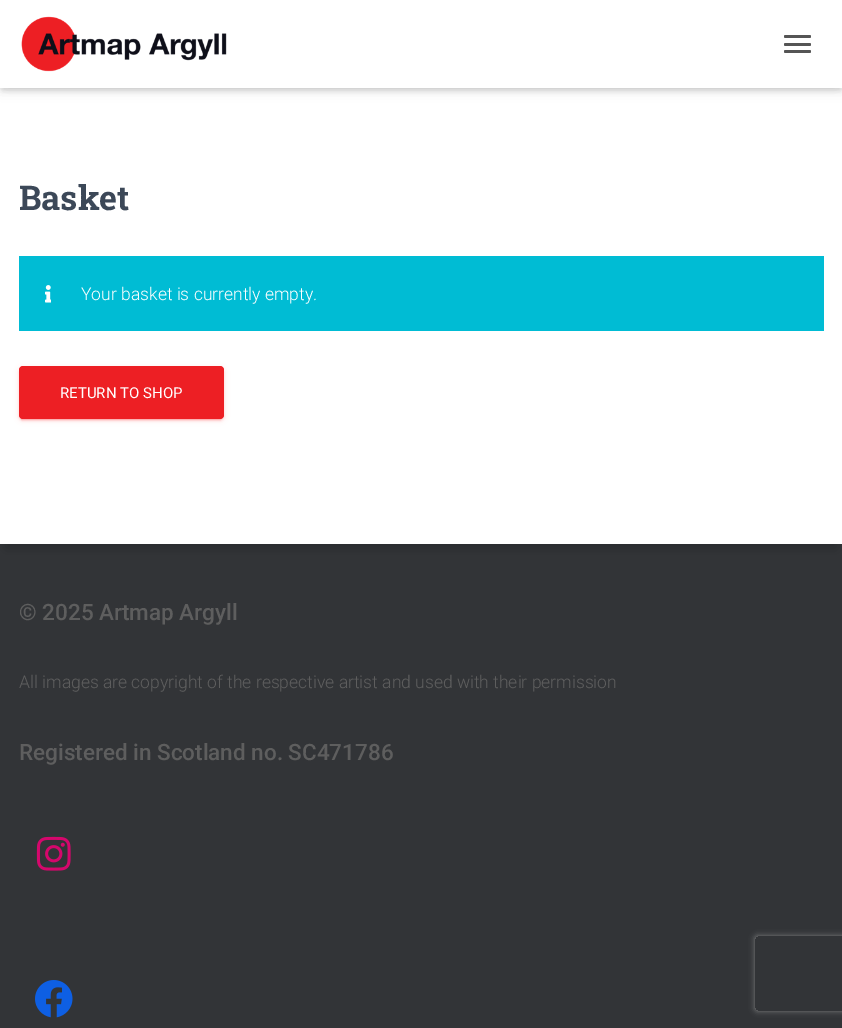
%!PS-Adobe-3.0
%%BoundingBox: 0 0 842 1028
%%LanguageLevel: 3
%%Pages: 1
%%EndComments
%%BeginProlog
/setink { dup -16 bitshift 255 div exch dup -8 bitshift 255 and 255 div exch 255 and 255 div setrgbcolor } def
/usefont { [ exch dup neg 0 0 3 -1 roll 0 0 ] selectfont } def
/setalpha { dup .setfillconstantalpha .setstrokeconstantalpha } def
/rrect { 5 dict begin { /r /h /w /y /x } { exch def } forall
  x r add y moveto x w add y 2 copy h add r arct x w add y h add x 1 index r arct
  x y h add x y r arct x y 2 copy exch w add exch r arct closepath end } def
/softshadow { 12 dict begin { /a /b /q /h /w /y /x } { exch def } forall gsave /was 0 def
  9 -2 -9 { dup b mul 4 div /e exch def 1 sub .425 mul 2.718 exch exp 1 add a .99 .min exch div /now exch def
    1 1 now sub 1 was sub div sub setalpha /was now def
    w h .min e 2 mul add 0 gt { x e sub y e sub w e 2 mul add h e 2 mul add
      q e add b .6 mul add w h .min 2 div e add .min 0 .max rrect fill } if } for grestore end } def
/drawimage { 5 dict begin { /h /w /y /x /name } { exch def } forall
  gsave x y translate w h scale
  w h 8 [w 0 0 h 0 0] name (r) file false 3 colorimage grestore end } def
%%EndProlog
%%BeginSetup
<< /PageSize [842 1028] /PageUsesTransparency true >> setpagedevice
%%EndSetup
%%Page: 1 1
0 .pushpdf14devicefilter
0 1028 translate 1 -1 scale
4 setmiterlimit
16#323437 setink
0 0 842 1028 rectfill
16#000000 setink
6 104 830 444 0 6 0.2 softshadow
16#FFFFFF setink
0 88 842 456 rectfill
16#000000 setink
3 8 837 82 0 3 0.1 softshadow
0 1 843 88 0 6 0.12 softshadow
8 9 827 72 0 6 0.42 softshadow
16#FFFFFF setink
0 0 842 88 rectfill
(img1.raw) 21 16 206 56 drawimage
16#555555 setink
784 35 27 3 1.5 rrect fill
784 43 27 3 1.5 rrect fill
784 50 27 3 1.5 rrect fill
/RobotoSlab-Bold 34 usefont
16#3C4858 setink
19 210 moveto (Basket) show
16#00BCD4 setink
19 256 805 75 rectfill
(img2.raw) 45 285 6 18 drawimage
/Roboto-Light 17.5 usefont
16#FFFFFF setink
81 300 moveto (Your basket is currently empty.) show
16#ED1F24 setink
19 368 205 52 4 3 0.12 softshadow
21 373 200 47 1 0.5 0.2 softshadow
19 369 205 52 4 1 0.14 softshadow
19 366 205 53 4 rrect fill
/Roboto-Regular 15 usefont
16#FFFFFF setink
60 398 moveto (RETURN TO SHOP) show
/Roboto-Medium 22.5 usefont
16#5E5E5E setink
19 620 moveto (© 2025 Artmap Argyll) show
/Roboto-Light 17.5 usefont
19 688 moveto (All images are copyright of the respective artist and used with their permission) show
/Roboto-Medium 22.5 usefont
19 760 moveto (Registered in Scotland no. SC471786) show
(img3.raw) 36 836 35 35 drawimage
(img4.raw) 35 980 38 38 drawimage
gsave
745 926 moveto 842 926 lineto 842 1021 lineto 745 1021 lineto closepath 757.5 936 moveto 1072.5 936 lineto 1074 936 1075 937 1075 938.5 curveto 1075 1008.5 lineto 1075 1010 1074 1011 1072.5 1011 curveto 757.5 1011 lineto 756 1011 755 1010 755 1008.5 curveto 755 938.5 lineto 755 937 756 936 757.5 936 curveto closepath eoclip newpath
16#808080 setink
755 936 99 75 2.5 3 1 softshadow
grestore
.poppdf14devicefilter showpage
%%EOF
